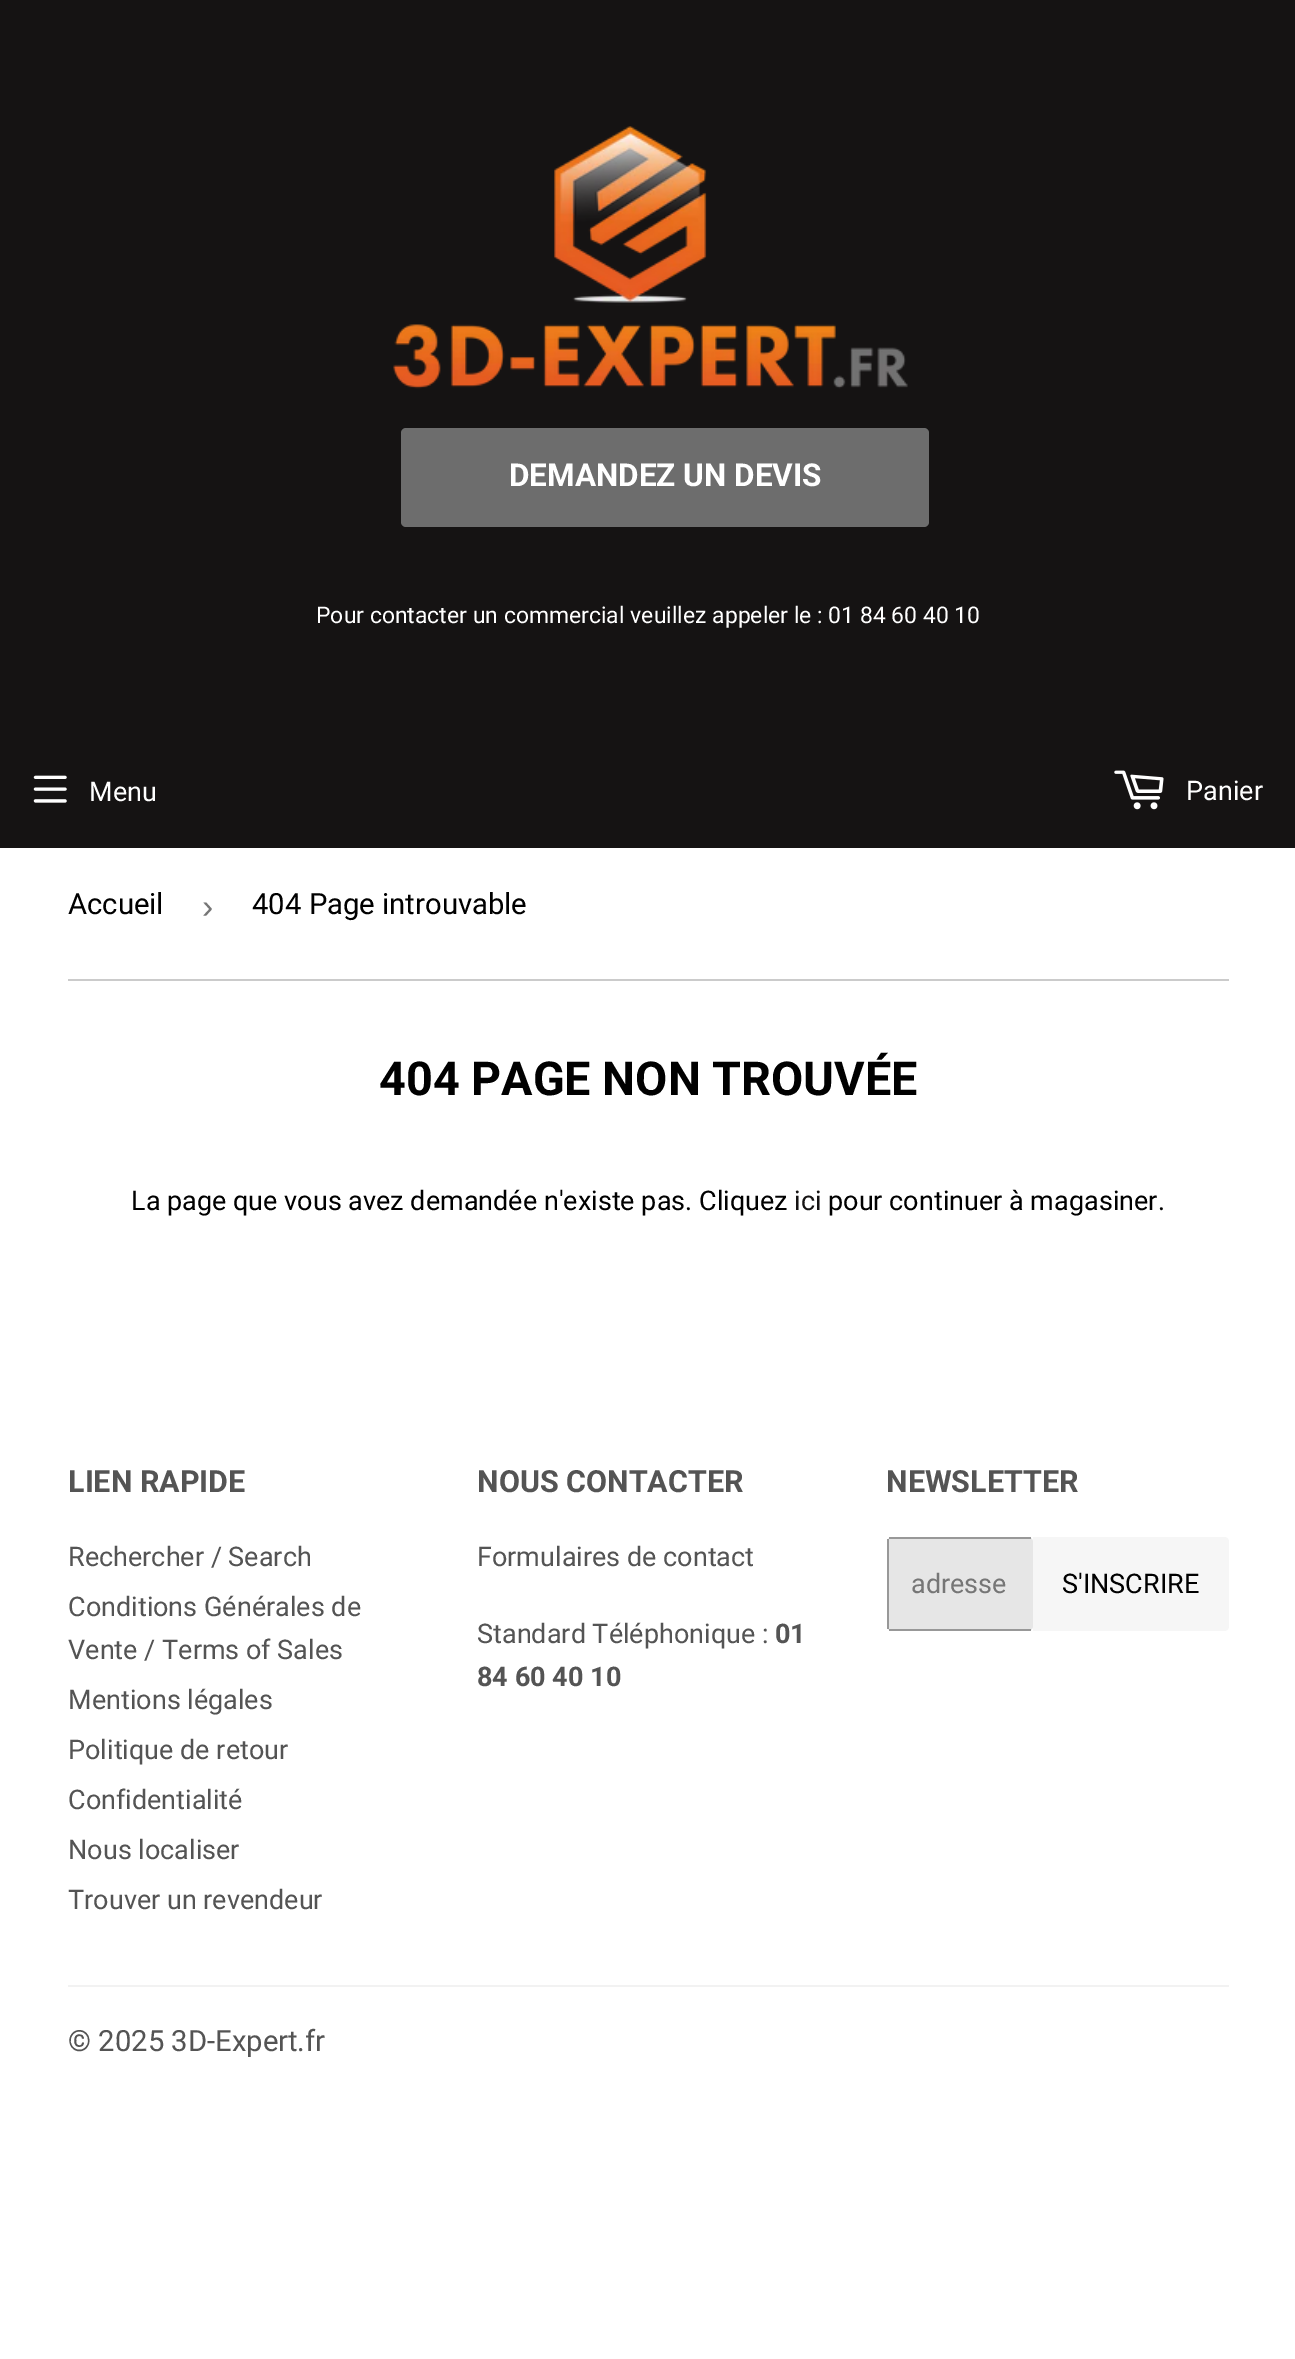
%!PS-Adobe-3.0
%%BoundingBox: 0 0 1295 2359
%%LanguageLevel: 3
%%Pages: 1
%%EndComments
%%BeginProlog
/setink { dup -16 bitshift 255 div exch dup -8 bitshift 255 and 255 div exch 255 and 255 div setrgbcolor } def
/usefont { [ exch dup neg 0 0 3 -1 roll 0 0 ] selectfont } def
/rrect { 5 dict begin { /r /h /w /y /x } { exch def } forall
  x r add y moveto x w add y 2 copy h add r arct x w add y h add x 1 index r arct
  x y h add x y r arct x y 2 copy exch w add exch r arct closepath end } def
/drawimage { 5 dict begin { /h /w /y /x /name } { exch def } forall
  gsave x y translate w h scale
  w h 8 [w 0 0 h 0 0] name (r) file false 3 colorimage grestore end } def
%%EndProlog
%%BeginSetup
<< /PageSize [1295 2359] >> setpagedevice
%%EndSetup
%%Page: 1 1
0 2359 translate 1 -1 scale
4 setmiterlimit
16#FFFFFF setink
0 0 1295 2359 rectfill
16#151313 setink
0 0 1295 848 rectfill
(img1.raw) 393 126 515 263 drawimage
16#6D6D6D setink
401 428 528 99 5 rrect fill
/Roboto-Bold 31.5 usefont
16#FFFFFF setink
509 486 moveto (DEMANDEZ UN DEVIS) show
/Roboto-Regular 22.95 usefont
316 623 moveto (Pour contacter un commercial veuillez appeler le : 01 84 60 40 10) show
(img2.raw) 33 775 34 28 drawimage
/Roboto-Regular 27 usefont
89 801 moveto (Menu) show
(img3.raw) 1114 770 50 40 drawimage
1186 800 moveto (Panier) show
16#CBCBCB setink
68 979 1161 2 rectfill
/Roboto-Regular 29.25 usefont
16#000000 setink
68 914 moveto (Accueil) show
/LiberationSans-Regular 34 usefont
16#767676 setink
202 918 moveto (›) show
/Roboto-Regular 29.25 usefont
16#000000 setink
252 914 moveto (404 Page introuvable) show
/Roboto-Bold 46.75 usefont
379 1095 moveto (404 PAGE NON TROUVÉE) show
/Roboto-Regular 27 usefont
131 1210 moveto (La page que vous avez demandée n'existe pas. Cliquez) show
16#151313 setink
794 1210 moveto (ici) show
16#000000 setink
828 1210 moveto (pour continuer à magasiner.) show
/Roboto-Bold 30.5 usefont
16#545454 setink
68 1492 moveto (LIEN RAPIDE) show
/Roboto-Regular 27 usefont
[
    [(Rechercher / Search) 68 1566]
    [(Conditions Générales de) 68 1616]
    [(Vente / Terms of Sales) 68 1659]
    [(Mentions légales) 68 1709]
    [(Politique de retour) 68 1759]
    [(Confidentialité) 68 1809]
    [(Nous localiser) 68 1859]
    [(Trouver un revendeur) 68 1909]
] { aload pop moveto show } forall
/Roboto-Bold 30.5 usefont
477 1492 moveto (NOUS CONTACTER) show
/Roboto-Regular 27 usefont
477 1566 moveto (Formulaires de contact) show
477 1643 moveto (Standard Téléphonique :) show
/Roboto-Bold 27 usefont
775 1643 moveto (01) show
477 1686 moveto (84 60 40 10) show
/Roboto-Bold 30.5 usefont
886 1492 moveto (NEWSLETTER) show
16#E6E6E6 setink
887 1537 146 94 5 rrect fill
[
    [889 1537 142 2 16#989898]
    [889 1629 142 2 16#989898]
    [887 1539 2 90 16#989898]
] { aload pop setink rectfill } forall
/Roboto-Regular 27 usefont
16#767676 setink
911 1593 moveto (adresse) show
16#F6F6F6 setink
1033 1537 moveto 1224 1537 lineto 1227 1537 1229 1539 1229 1542 curveto 1229 1626 lineto 1229 1629 1227 1631 1224 1631 curveto 1033 1631 lineto closepath fill
16#000000 setink
1062 1593 moveto (S'INSCRIRE) show
16#F2F2F2 setink
68 1985 1161 2 rectfill
/Roboto-Regular 29.25 usefont
16#545454 setink
68 2051 moveto (© 2025 3D-Expert.fr) show
showpage
%%EOF
